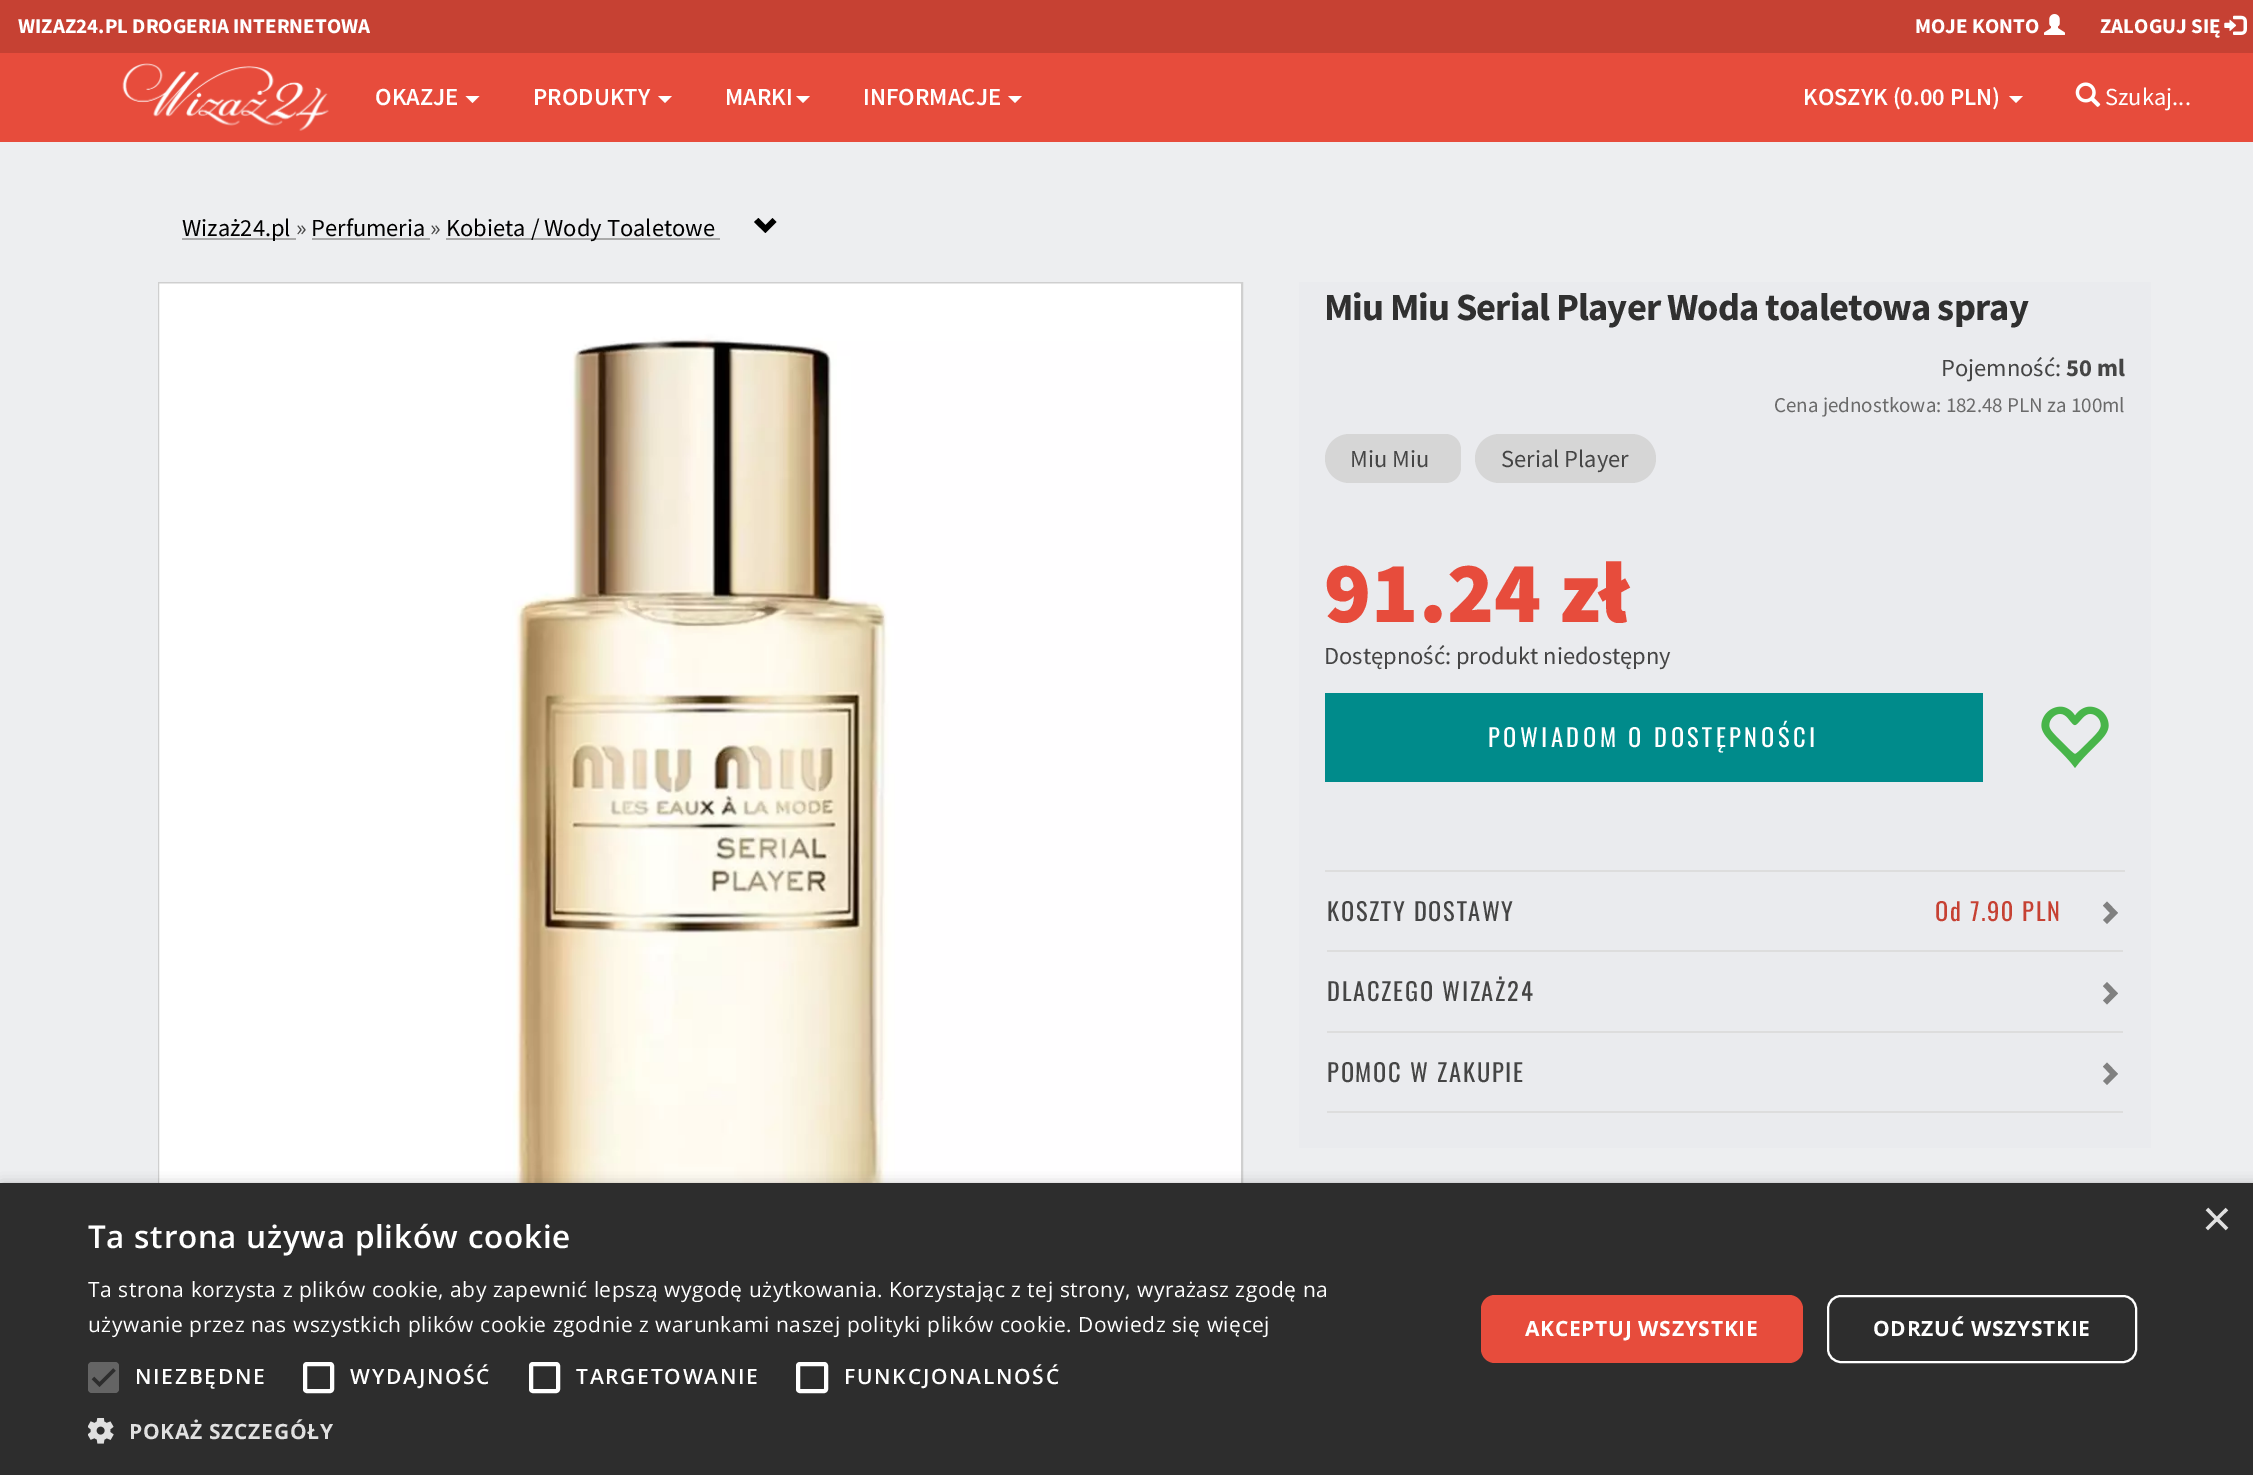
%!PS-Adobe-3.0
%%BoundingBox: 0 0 2253 1475
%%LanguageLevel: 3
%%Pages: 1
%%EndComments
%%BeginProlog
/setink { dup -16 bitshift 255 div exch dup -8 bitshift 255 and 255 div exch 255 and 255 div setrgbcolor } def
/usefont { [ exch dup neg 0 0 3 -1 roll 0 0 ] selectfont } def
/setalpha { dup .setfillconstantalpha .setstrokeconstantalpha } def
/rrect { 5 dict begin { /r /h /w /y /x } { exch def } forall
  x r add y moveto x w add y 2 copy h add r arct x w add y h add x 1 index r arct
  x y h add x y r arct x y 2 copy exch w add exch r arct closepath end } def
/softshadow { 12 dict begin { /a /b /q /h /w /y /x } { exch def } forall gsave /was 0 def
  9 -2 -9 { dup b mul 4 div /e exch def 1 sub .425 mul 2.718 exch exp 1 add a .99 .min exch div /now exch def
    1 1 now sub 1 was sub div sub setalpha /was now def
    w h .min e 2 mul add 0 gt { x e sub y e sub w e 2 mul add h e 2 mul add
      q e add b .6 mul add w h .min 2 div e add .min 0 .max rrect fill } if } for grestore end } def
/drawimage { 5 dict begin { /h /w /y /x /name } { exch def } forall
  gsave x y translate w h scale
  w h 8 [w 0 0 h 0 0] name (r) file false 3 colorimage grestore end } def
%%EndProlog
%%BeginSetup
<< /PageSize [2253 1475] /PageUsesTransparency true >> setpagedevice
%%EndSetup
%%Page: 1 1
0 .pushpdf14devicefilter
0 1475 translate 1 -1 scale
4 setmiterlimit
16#EDEEF0 setink
0 0 2253 1475 rectfill
16#E74C3C setink
0 53 2253 89 rectfill
16#C64133 setink
0 0 2253 53 rectfill
/SourceSansPro-Bold 21 usefont
16#FFFFFF setink
18 33 moveto (WIZAZ24.PL DROGERIA INTERNETOWA) show
1915 33 moveto (MOJE KONTO) show
(img1.raw) 2044 14 21 21 drawimage
2100 33 moveto (ZALOGUJ SIĘ) show
(img2.raw) 2224 15 23 20 drawimage
(img3.raw) 122 63 207 68 drawimage
/SourceSansPro-SemiBold 24.5 usefont
375 105 moveto (OKAZJE) show
465.5 96 moveto 479.5 96 lineto 472.5 103 lineto closepath fill
533 105 moveto (PRODUKTY) show
658 96 moveto 672 96 lineto 665 103 lineto closepath fill
725 105 moveto (MARKI) show
796 96 moveto 810 96 lineto 803 103 lineto closepath fill
863 105 moveto (INFORMACJE) show
1008 96 moveto 1022 96 lineto 1015 103 lineto closepath fill
1803 105 moveto (KOSZYK \(0.00 PLN\)) show
2009 96 moveto 2023 96 lineto 2016 103 lineto closepath fill
(img4.raw) 2075 82 26 25 drawimage
/SourceSansPro-Regular 24.5 usefont
2105 105 moveto (Szukaj...) show
16#AAAAAA setink
182 238 114 2 rectfill
16#000000 setink
182 236 moveto (Wizaż24.pl) show
16#454545 setink
296 236 moveto (») show
16#000000 setink
311 236 moveto (Perfumeria) show
16#AAAAAA setink
312 238 118 2 rectfill
16#454545 setink
430 236 moveto (») show
16#AAAAAA setink
446 238 274 2 rectfill
16#000000 setink
446 236 moveto (Kobieta / Wody Toaletowe) show
776.5 222 moveto 765.5 233 lineto 754 222 lineto 758.5 218 lineto 765.5 225 lineto 772.5 218 lineto closepath fill
16#CFCFCF setink
2 setlinewidth
159 283 1083 1083 rectstroke
(img5.raw) 159 283 1082 900 drawimage
16#EAEBEE setink
1299 282 852 866 rectfill
/SourceSansPro-Bold 38.5 usefont
16#303030 setink
1324 320 moveto -0.9 0 (Miu Miu Serial Player Woda toaletowa spray) ashow
/SourceSansPro-Regular 24.5 usefont
16#454545 setink
1941 376 moveto (Pojemność:) show
/SourceSansPro-Bold 24.5 usefont
2066 376 moveto (50 ml) show
/SourceSansPro-Regular 21 usefont
16#6A6A6A setink
1774 412 moveto (Cena jednostkowa: 182.48 PLN za 100ml) show
16#D6D6D6 setink
1349.5 434 moveto 1430 434 lineto 1430 483 lineto 1349.5 483 lineto 1336 483 1325 472 1325 458.5 curveto 1325 445 1336 434 1349.5 434 curveto closepath fill
/SourceSansPro-Regular 24.5 usefont
16#454545 setink
1350 467 moveto (Miu Miu) show
16#D6D6D6 setink
1430 434 moveto 1445.5 434 lineto 1454 434 1461 441 1461 449.5 curveto 1461 467.5 lineto 1461 476 1454 483 1445.5 483 curveto 1430 483 lineto closepath fill
1475 434 181 49 24.5 rrect fill
16#454545 setink
1501 467 moveto (Serial Player) show
/SourceSansPro-Black 87.5 usefont
16#E74C3C setink
1324 622 moveto (91.24 zł) show
/SourceSansPro-Regular 24.5 usefont
16#454545 setink
1324 664 moveto (Dostępność: produkt niedostępny) show
16#008B8B setink
1325 693 658 89 rectfill
/Oswald-Regular 24.5 usefont
16#FFFFFF setink
1488 747 moveto 3.5 0 (POWIADOM O DOSTĘPNOŚCI) ashow
(img6.raw) 2041 706 68 62 drawimage
16#DDDDDD setink
1325 870 800 2 rectfill
1327 950 796 2 rectfill
16#454545 setink
1327 921 moveto 1.75 0 (KOSZTY DOSTAWY) ashow
16#C64133 setink
1935 921 moveto 1.75 0 (Od 7.90 PLN) ashow
16#808080 setink
2118 913 moveto 2107 924 lineto 2103 920 lineto 2110 913 lineto 2103 905.5 lineto 2107 901.5 lineto closepath fill
16#DDDDDD setink
1327 1031 796 2 rectfill
16#454545 setink
1327 1001 moveto 1.75 0 (DLACZEGO WIZAŻ24) ashow
16#808080 setink
2118 993.5 moveto 2107 1004.5 lineto 2103 1000.5 lineto 2110 993.5 lineto 2103 986 lineto 2107 982 lineto closepath fill
16#DDDDDD setink
1327 1111 796 2 rectfill
16#454545 setink
1327 1082 moveto 1.75 0 (POMOC W ZAKUPIE) ashow
16#808080 setink
2118 1074 moveto 2107 1085 lineto 2103 1081 lineto 2110 1074 lineto 2103 1066.5 lineto 2107 1062.5 lineto closepath fill
16#000000 setink
2 1187 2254 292 0 7 0.35 softshadow
16#2D2D2D setink
0 1183 2253 292 rectfill
/LiberationSans-Regular 51 usefont
16#E0E0E0 setink
2202 1236 moveto (×) show
/OpenSans-SemiBold 31.5 usefont
16#FFFFFF setink
88 1248 moveto 0.7 0 (Ta strona używa plików cookie) ashow
/OpenSans-Regular 21 usefont
88 1297 moveto 0.53 0 (Ta strona korzysta z plików cookie, aby zapewnić lepszą wygodę użytkowania. Korzystając z tej strony, wyrażasz zgodę na) ashow
88 1332 moveto 0.53 0 (używanie przez nas wszystkich plików cookie zgodnie z warunkami naszej polityki plików cookie. Dowiedz się więcej) ashow
16#646464 setink
88 1362 31 31 4 rrect fill
16#2D2D2D setink
3.2 setlinewidth
93 1378 moveto 99.5 1384.5 lineto 114.5 1369.5 lineto stroke
/OpenSans-SemiBold 21 usefont
16#FFFFFF setink
135 1384 moveto 1.75 0 (NIEZBĘDNE) ashow
4 setlinewidth
305 1364 27 27 2 rrect stroke
350 1384 moveto 1.75 0 (WYDAJNOŚĆ) ashow
531 1364 27 27 2 rrect stroke
576 1384 moveto 1.75 0 (TARGETOWANIE) ashow
798 1364 28 27 2 rrect stroke
844 1384 moveto 1.75 0 (FUNKCJONALNOŚĆ) ashow
(img7.raw) 88 1418 26 26 drawimage
/OpenSans-Bold 21 usefont
16#E0E0E0 setink
129 1439 moveto 0.7 0 (POKAŻ SZCZEGÓŁY) ashow
16#E74C3C setink
1481 1295 322 68 14 rrect fill
16#FFFFFF setink
1525 1336 moveto 0.7 0 (AKCEPTUJ WSZYSTKIE) ashow
2 setlinewidth
1828 1296 308 66 13 rrect stroke
1873 1336 moveto 0.7 0 (ODRZUĆ WSZYSTKIE) ashow
.poppdf14devicefilter showpage
%%EOF
